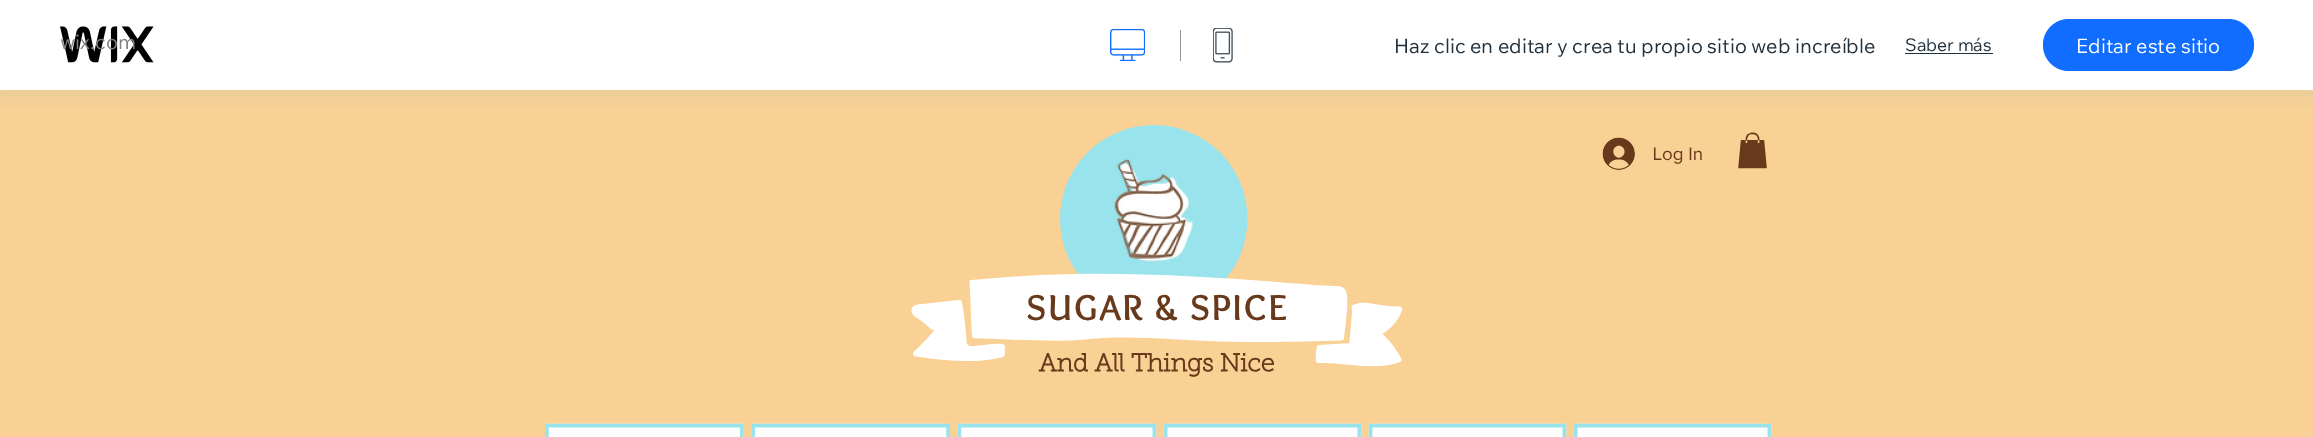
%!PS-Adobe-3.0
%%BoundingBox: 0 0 2313 437
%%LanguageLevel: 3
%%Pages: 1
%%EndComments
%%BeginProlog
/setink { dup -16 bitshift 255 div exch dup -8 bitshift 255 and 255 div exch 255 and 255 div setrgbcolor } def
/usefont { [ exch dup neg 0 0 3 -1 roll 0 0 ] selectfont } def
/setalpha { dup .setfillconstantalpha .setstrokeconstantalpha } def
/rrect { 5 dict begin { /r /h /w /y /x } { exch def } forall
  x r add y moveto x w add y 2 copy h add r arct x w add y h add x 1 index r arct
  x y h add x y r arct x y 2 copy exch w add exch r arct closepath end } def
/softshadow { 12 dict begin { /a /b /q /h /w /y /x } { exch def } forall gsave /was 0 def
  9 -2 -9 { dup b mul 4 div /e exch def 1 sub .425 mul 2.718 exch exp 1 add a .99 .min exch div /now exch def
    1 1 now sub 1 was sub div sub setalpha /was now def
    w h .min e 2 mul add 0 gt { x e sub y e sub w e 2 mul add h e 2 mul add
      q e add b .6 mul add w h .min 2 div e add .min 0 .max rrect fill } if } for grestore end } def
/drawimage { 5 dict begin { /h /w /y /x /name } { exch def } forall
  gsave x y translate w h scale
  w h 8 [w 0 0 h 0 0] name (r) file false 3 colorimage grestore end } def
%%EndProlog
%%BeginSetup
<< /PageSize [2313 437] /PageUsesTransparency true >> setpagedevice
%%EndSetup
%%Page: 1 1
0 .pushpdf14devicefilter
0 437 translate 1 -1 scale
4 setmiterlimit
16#FFFFFF setink
0 0 2313 437 rectfill
(img4.raw) 0 90 2313 347 drawimage
16#81A2B6 setink
0 3 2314 90 0 11 0.2 softshadow
16#FFFFFF setink
0 0 2313 90 rectfill
(img1.raw) 60 26 94 37 drawimage
/WixMadeforText-Regular 20 usefont
16#818181 setink
60 49 moveto (wix.com) show
(img2.raw) 1110 29 35 32 drawimage
16#90989E setink
1180 30 1 31 rectfill
(img3.raw) 1213 28 20 35 drawimage
16#20303C setink
1394 53 moveto (Haz clic en editar y crea tu propio sitio web increíble) show
/WixMadeforText-Regular 17.5 usefont
1905 51 moveto (Saber más) show
1905 53 88 1 rectfill
16#116DFF setink
2043 19 211 52 26 rrect fill
/WixMadeforText-Regular 20 usefont
16#FFFFFF setink
2076 53 moveto (Editar este sitio) show
.poppdf14devicefilter showpage
%%EOF
